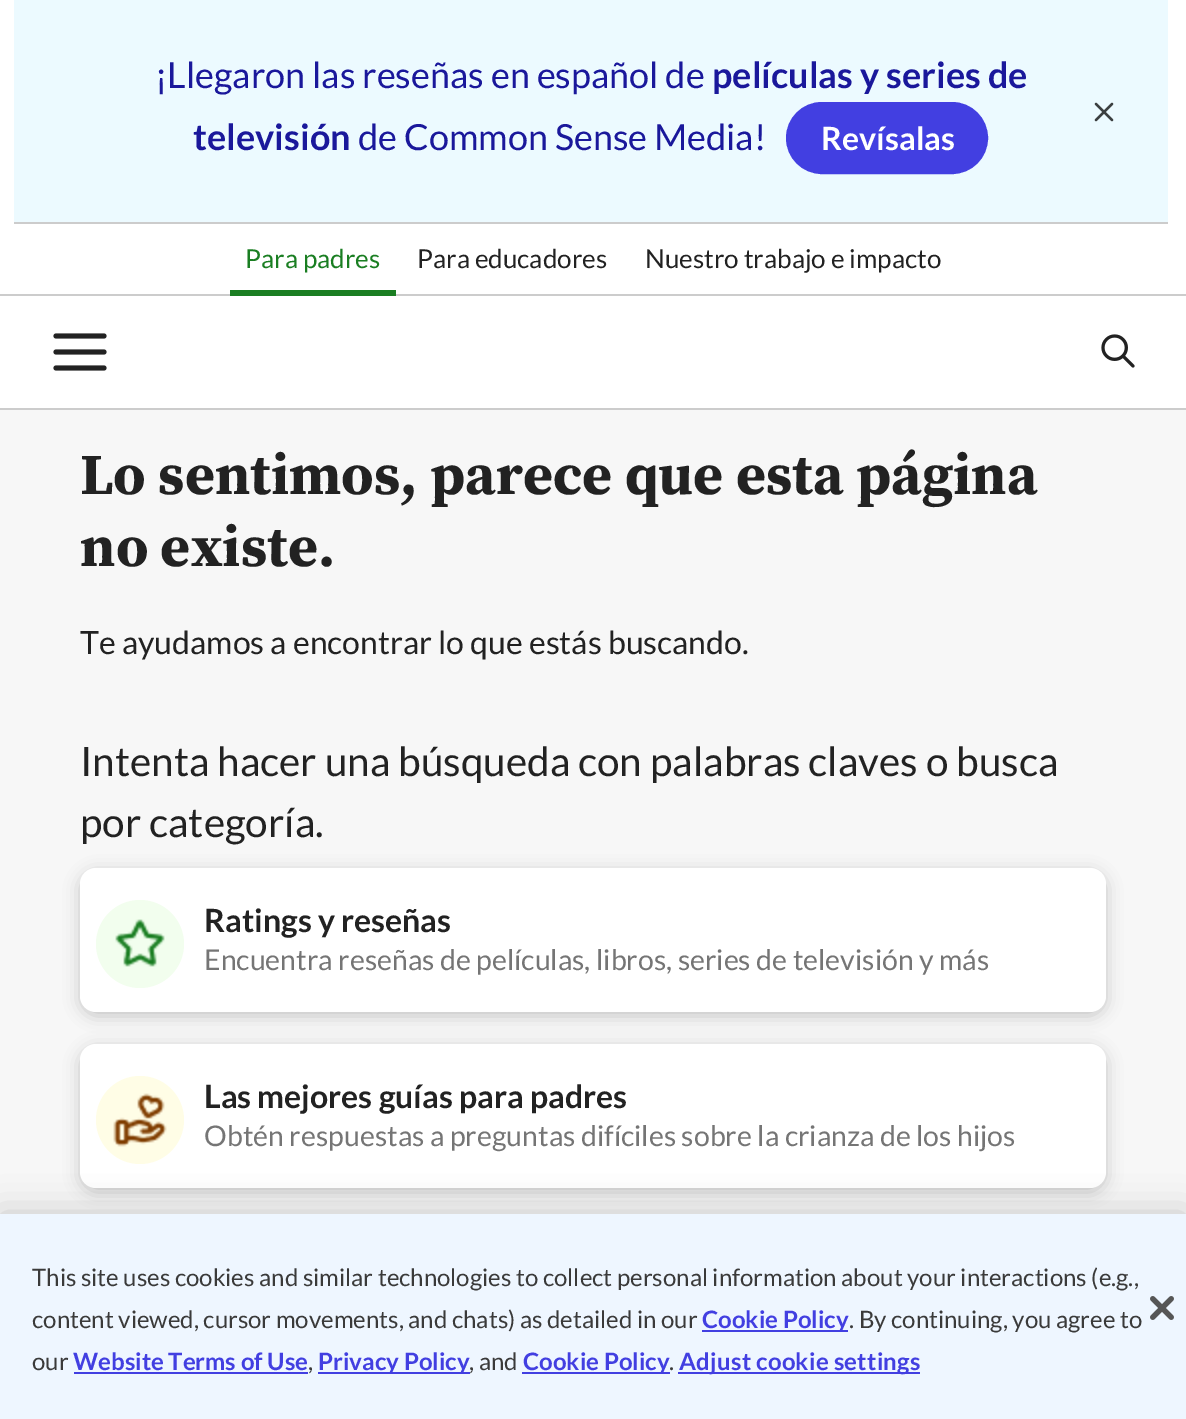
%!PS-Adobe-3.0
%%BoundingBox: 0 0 1186 1419
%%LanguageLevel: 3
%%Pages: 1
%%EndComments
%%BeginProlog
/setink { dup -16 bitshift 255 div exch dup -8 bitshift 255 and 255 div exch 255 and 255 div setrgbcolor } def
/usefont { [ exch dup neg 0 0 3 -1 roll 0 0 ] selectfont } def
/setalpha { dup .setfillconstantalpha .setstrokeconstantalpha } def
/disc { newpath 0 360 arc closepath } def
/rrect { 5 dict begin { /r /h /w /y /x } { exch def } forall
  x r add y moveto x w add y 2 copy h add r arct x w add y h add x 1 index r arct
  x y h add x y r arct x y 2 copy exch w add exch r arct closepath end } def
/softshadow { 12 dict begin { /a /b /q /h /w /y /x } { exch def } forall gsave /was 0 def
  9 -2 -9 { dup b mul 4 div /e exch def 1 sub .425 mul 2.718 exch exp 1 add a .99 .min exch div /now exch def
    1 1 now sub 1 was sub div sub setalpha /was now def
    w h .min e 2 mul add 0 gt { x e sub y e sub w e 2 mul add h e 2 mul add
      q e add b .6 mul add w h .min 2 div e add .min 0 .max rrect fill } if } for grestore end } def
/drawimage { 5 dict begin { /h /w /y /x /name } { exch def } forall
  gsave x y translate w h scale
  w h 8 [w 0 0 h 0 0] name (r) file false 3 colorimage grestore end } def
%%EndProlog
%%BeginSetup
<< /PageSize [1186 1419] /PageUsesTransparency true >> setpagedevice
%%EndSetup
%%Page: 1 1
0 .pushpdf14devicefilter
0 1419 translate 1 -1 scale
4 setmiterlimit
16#FFFFFF setink
0 0 1186 1419 rectfill
[
    [0 294 1186 2 16#CCCCCC]
    [14 0 1154 222 16#ECFAFF]
    [14 222 1154 2 16#CCCCCC]
] { aload pop setink rectfill } forall
/Lato-Regular 36 usefont
16#1A189B setink
155 88 moveto (¡Llegaron las reseñas en español de) show
/Lato-Bold 36 usefont
712 88 moveto (películas y series de) show
193 150 moveto (televisión) show
/Lato-Regular 36 usefont
358 150 moveto (de Common Sense Media!) show
16#423FE1 setink
787 103 200 70 35 rrect gsave fill grestore
2 setlinewidth
stroke
/Lato-Bold 32 usefont
16#FFFFFF setink
821 150 moveto (Revísalas) show
(img1.raw) 1094 102 20 20 drawimage
/Lato-Regular 26 usefont
16#1A7E22 setink
245 268 moveto (Para padres) show
230 290 166 6 rectfill
16#222222 setink
417 268 moveto (Para educadores) show
645 268 moveto (Nuestro trabajo e impacto) show
16#CCCCCC setink
0 408 1186 2 rectfill
(img2.raw) 53 333 54 38 drawimage
(img3.raw) 1101 334 34 34 drawimage
16#F7F7F7 setink
0 410 1186 804 rectfill
/SourceSerifPro-Bold 57.7 usefont
16#222222 setink
80 494 moveto (Lo sentimos, parece que esta página) show
80 566 moveto (no existe.) show
/Lato-Regular 32 usefont
80 654 moveto (Te ayudamos a encontrar lo que estás buscando.) show
/Lato-Regular 40.5 usefont
80 776 moveto (Intenta hacer una búsqueda con palabras claves o busca) show
80 837 moveto (por categoría.) show
16#000000 setink
80 872 1026 144 16 8 0.2 softshadow
16#FFFFFF setink
80 868 1026 144 16 rrect fill
16#F2FEEE setink
140 944 44 disc fill
(img4.raw) 115 919 50 48 drawimage
/Lato-Bold 32 usefont
16#222222 setink
204 932 moveto (Ratings y reseñas) show
/Lato-Regular 28.45 usefont
16#757575 setink
204 970 moveto (Encuentra reseñas de películas, libros, series de televisión y más) show
16#000000 setink
80 1048 1026 144 16 8 0.2 softshadow
16#FFFFFF setink
80 1044 1026 144 16 rrect fill
16#FFFDE6 setink
140 1120 44 disc fill
(img5.raw) 113 1093 54 54 drawimage
/Lato-Bold 32 usefont
16#222222 setink
204 1108 moveto (Las mejores guías para padres) show
/Lato-Regular 28.45 usefont
16#757575 setink
204 1146 moveto (Obtén respuestas a preguntas difíciles sobre la crianza de los hijos) show
16#000000 setink
0 1214 1186 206 0 18 0.2 softshadow
16#EEF6FF setink
0 1214 1186 205 rectfill
/Lato-Regular 24 usefont
16#3A3A3A setink
32 1286 moveto (This site uses cookies and similar technologies to collect personal information about your interactions \(e.g.,) show
32 1328 moveto (content viewed, cursor movements, and chats\) as detailed in our) show
16#423FE1 setink
702 1330 146 2 rectfill
/Lato-Bold 24 usefont
702 1328 moveto (Cookie Policy) show
/Lato-Regular 24 usefont
16#3A3A3A setink
849 1328 moveto (. By continuing, you agree to) show
32 1370 moveto (our) show
/Lato-Bold 24 usefont
16#423FE1 setink
73 1370 moveto (Website Terms of Use) show
/Lato-Regular 24 usefont
16#3A3A3A setink
308 1370 moveto (,) show
16#423FE1 setink
74 1372 234 2 rectfill
318 1372 152 2 rectfill
/Lato-Bold 24 usefont
318 1370 moveto (Privacy Policy) show
/Lato-Regular 24 usefont
16#3A3A3A setink
469 1370 moveto (, and) show
16#423FE1 setink
522 1372 148 2 rectfill
/Lato-Bold 24 usefont
523 1370 moveto (Cookie Policy) show
/Lato-Regular 24 usefont
16#3A3A3A setink
669 1370 moveto (.) show
16#423FE1 setink
678 1372 242 2 rectfill
/Lato-Bold 24 usefont
679 1370 moveto 0.25 0 (Adjust cookie settings) ashow
(img6.raw) 1150 1296 24 24 drawimage
.poppdf14devicefilter showpage
%%EOF
